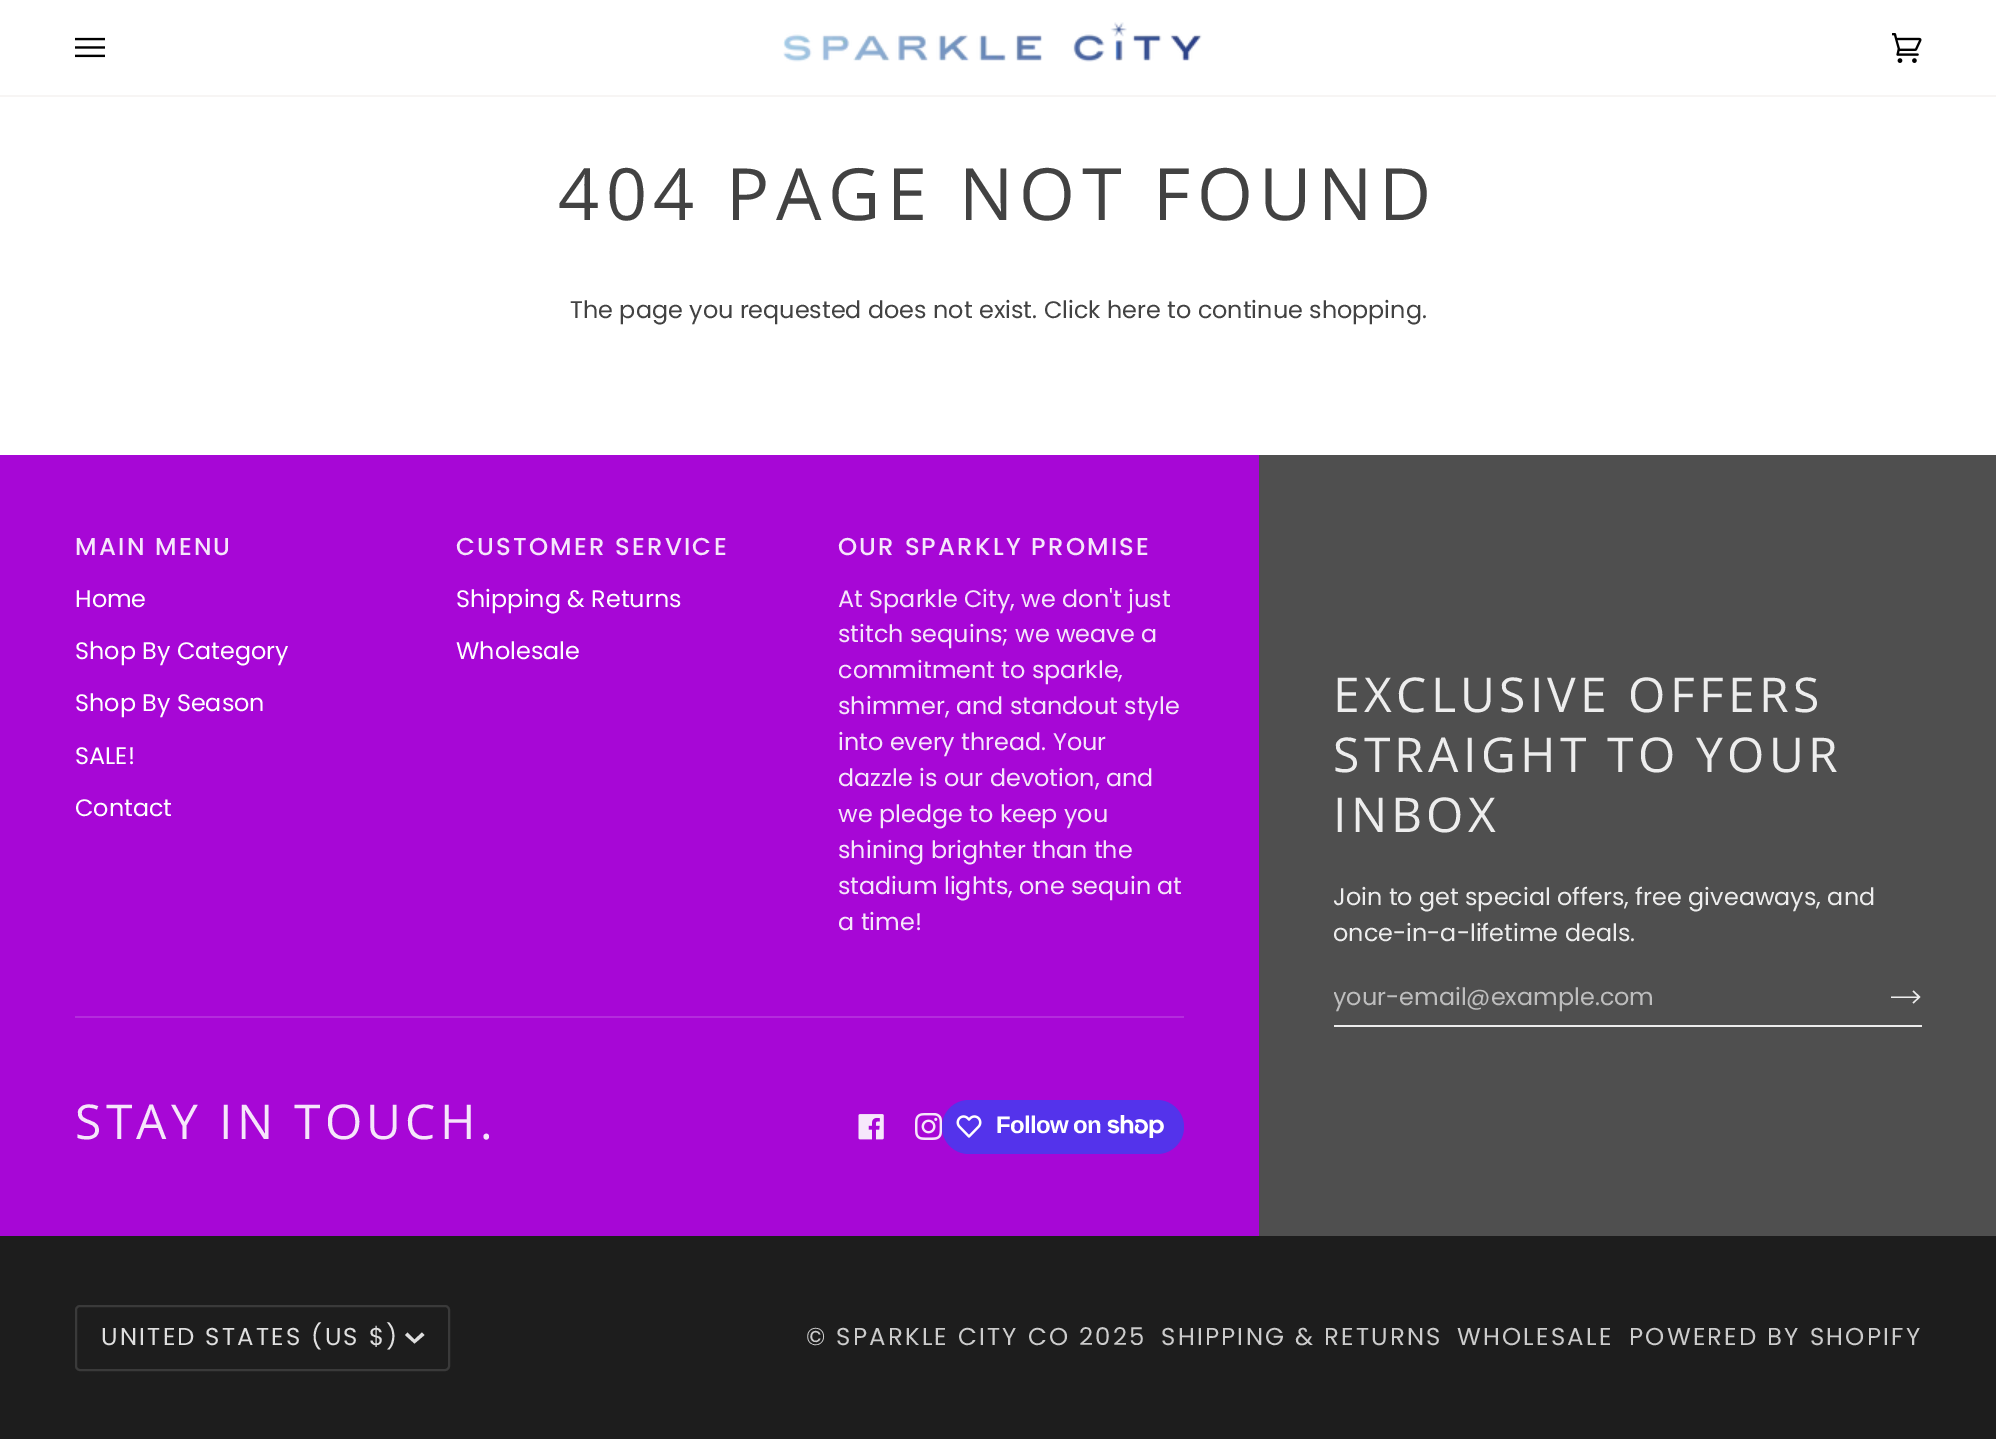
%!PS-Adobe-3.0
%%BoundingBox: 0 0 1996 1439
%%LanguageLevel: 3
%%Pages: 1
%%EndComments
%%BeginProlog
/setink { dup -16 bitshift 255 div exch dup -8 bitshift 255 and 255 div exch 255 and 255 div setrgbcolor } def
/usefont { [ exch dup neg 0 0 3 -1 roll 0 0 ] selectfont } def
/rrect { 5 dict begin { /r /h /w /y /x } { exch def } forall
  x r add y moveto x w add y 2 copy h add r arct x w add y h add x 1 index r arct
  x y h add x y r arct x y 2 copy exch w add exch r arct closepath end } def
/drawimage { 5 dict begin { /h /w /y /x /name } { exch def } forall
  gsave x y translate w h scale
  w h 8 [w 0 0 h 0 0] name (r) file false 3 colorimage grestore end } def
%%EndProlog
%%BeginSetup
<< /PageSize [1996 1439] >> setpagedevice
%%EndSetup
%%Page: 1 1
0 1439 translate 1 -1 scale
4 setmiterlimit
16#FFFFFF setink
0 0 1996 1439 rectfill
16#F7F5F4 setink
0 95 1996 2 rectfill
(img1.raw) 75 37 30 21 drawimage
(img2.raw) 783 22 419 40 drawimage
(img3.raw) 1892 33 30 30 drawimage
/OpenSans-Regular 72 usefont
16#424242 setink
558 220 moveto 6.5 0 (404 PAGE NOT FOUND) ashow
/Poppins-Regular 23.9 usefont
570 318 moveto (The page you requested does not exist. Click) show
1107 318 moveto (here to continue shopping.) show
16#A707D6 setink
0 455 1259 781 rectfill
/Poppins-Medium 24.4 usefont
16#F6E6FB setink
75 555 moveto 2.2 0 (MAIN MENU) ashow
/Poppins-Regular 23.9 usefont
16#FFFFFF setink
[
    [(Home) 75 607]
    [(Shop By Category) 75 659]
    [(Shop By Season) 75 711]
    [(SALE!) 75 764]
    [(Contact) 75 816]
] { aload pop moveto show } forall
/Poppins-Medium 24.4 usefont
16#F6E6FB setink
456 555 moveto 2.2 0 (CUSTOMER SERVICE) ashow
/Poppins-Regular 23.9 usefont
16#FFFFFF setink
456 607 moveto (Shipping & Returns) show
456 659 moveto (Wholesale) show
/Poppins-Medium 24.4 usefont
16#F6E6FB setink
838 555 moveto 2.2 0 (OUR SPARKLY PROMISE) ashow
/Poppins-Regular 23.9 usefont
[
    [(At Sparkle City, we don't just) 838 607]
    [(stitch sequins; we weave a) 838 642]
    [(commitment to sparkle,) 838 678]
    [(shimmer, and standout style) 838 714]
    [(into every thread. Your) 838 750]
    [(dazzle is our devotion, and) 838 786]
    [(we pledge to keep you) 838 822]
    [(shining brighter than the) 838 858]
    [(stadium lights, one sequin at) 838 894]
    [(a time!) 838 930]
] { aload pop moveto show } forall
16#B42CDC setink
75 1016 1109 2 rectfill
/OpenSans-Regular 48 usefont
16#F6E6FB setink
75 1139 moveto 4.3 0 (STAY IN TOUCH.) ashow
(img4.raw) 858 1114 26 26 drawimage
(img5.raw) 915 1113 27 27 drawimage
16#5433EB setink
942 1100 242 54 27 rrect fill
(img6.raw) 956 1115 26 23 drawimage
/LiberationSans-Bold 24 usefont
16#FFFFFF setink
996 1133 moveto -0.75 0 (Follow on) ashow
(img7.raw) 1107 1115 57 23 drawimage
16#4F4F4F setink
1259 455 737 781 rectfill
/OpenSans-Regular 48 usefont
16#EDEDED setink
1333 712 moveto 4.3 0 (EXCLUSIVE OFFERS) ashow
1333 772 moveto 4.3 0 (STRAIGHT TO YOUR) ashow
1333 832 moveto 4.3 0 (INBOX) ashow
/Poppins-Regular 23.9 usefont
1333 905 moveto (Join to get special offers, free giveaways, and) show
1333 941 moveto (once-in-a-lifetime deals.) show
1334 1025 588 2 rectfill
gsave
1334 969 508 56 5 rrect clip newpath
16#BEBEBE setink
1333 1005 moveto (your-email@example.com) show
grestore
1912.5 991.5 moveto 1913.5 990.5 lineto 1920.5 997 lineto 1913.5 1003.5 lineto 1912.5 1002.5 lineto 1917.5 998 lineto 1891 998 lineto 1891 996.5 lineto 1917.5 996.5 lineto closepath fill
16#1D1D1D setink
0 1236 1996 203 rectfill
16#3A3A3A setink
2 setlinewidth
76 1306 373 64 4 rrect stroke
/Poppins-Regular 24.4 usefont
16#DFDFDF setink
101 1345 moveto 2.2 0 (UNITED STATES \(US $\)) ashow
405 1335 moveto 407.5 1332.5 lineto 414.5 1339.5 lineto 422 1332.5 lineto 424.5 1335 lineto 414.5 1343.5 lineto closepath eofill
16#CCCCCC setink
806 1345 moveto 2.2 0 (© SPARKLE CITY CO) ashow
1079 1345 moveto 2.2 0 (2025) ashow
1161 1345 moveto 2.2 0 (SHIPPING & RETURNS) ashow
1457 1345 moveto 2.2 0 (WHOLESALE) ashow
1629 1345 moveto 2.2 0 (POWERED BY SHOPIFY) ashow
showpage
%%EOF
